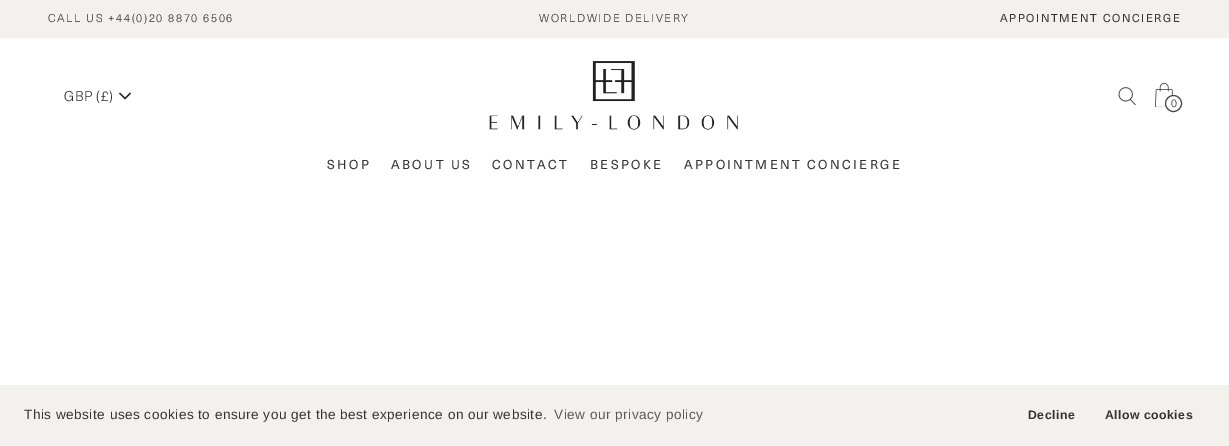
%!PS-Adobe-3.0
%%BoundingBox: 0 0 1229 446
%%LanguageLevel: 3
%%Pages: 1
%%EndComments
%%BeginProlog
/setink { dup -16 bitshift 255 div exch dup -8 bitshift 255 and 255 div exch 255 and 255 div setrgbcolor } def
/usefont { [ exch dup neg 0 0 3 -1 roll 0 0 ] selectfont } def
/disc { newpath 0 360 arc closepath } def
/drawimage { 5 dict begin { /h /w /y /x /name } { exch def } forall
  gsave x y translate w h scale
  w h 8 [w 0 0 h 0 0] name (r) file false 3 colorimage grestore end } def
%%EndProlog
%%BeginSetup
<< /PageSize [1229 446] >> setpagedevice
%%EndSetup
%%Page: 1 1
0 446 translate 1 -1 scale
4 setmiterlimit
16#FFFFFF setink
0 0 1229 446 rectfill
16#F3F1EE setink
0 0 1229 38 rectfill
/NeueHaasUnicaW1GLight-Light 11.25 usefont
16#333333 setink
48 22 moveto 1.6 0 (CALL US +44\(0\)20 8870 6506) ashow
539 22 moveto 1.6 0 (WORLDWIDE DELIVERY) ashow
/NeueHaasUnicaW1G-Regular 11.25 usefont
1000 22 moveto 1.6 0 (APPOINTMENT CONCIERGE) ashow
(img1.raw) 119 92 12 8 drawimage
/NeueHaasUnicaW1GLight-Light 14 usefont
64 101 moveto 0.48 0 (GBP \(£\)) ashow
(img2.raw) 489 61 249 69 drawimage
(img3.raw) 1118 87 18 18 drawimage
(img4.raw) 1155 83 18 24 drawimage
16#FFFFFF setink
1173.5 103.5 8 disc gsave fill grestore
16#444444 setink
stroke
/NeueHaasUnicaW1GLight-Light 11 usefont
16#333333 setink
1171 107 moveto 0.48 0 (0) ashow
/NeueHaasUnicaW1G-Regular 12.75 usefont
327 169 moveto 2.4 0 (SHOP) ashow
391 169 moveto 2.4 0 (ABOUT US) ashow
492 169 moveto 2.4 0 (CONTACT) ashow
590 169 moveto 2.4 0 (BESPOKE) ashow
684 169 moveto 2.4 0 (APPOINTMENT CONCIERGE) ashow
16#F3F1EE setink
0 385 1229 61 rectfill
/LiberationSans-Regular 13.6 usefont
16#333333 setink
24 419 moveto 0.48 0 (This website uses cookies to ensure you get the best experience on our website.) ashow
16#595958 setink
554 419 moveto 0.48 0 (View our privacy policy) ashow
/LiberationSans-Bold 12.25 usefont
16#333333 setink
1028 419 moveto 0.48 0 (Decline) ashow
1105 419 moveto 0.48 0 (Allow cookies) ashow
showpage
%%EOF
